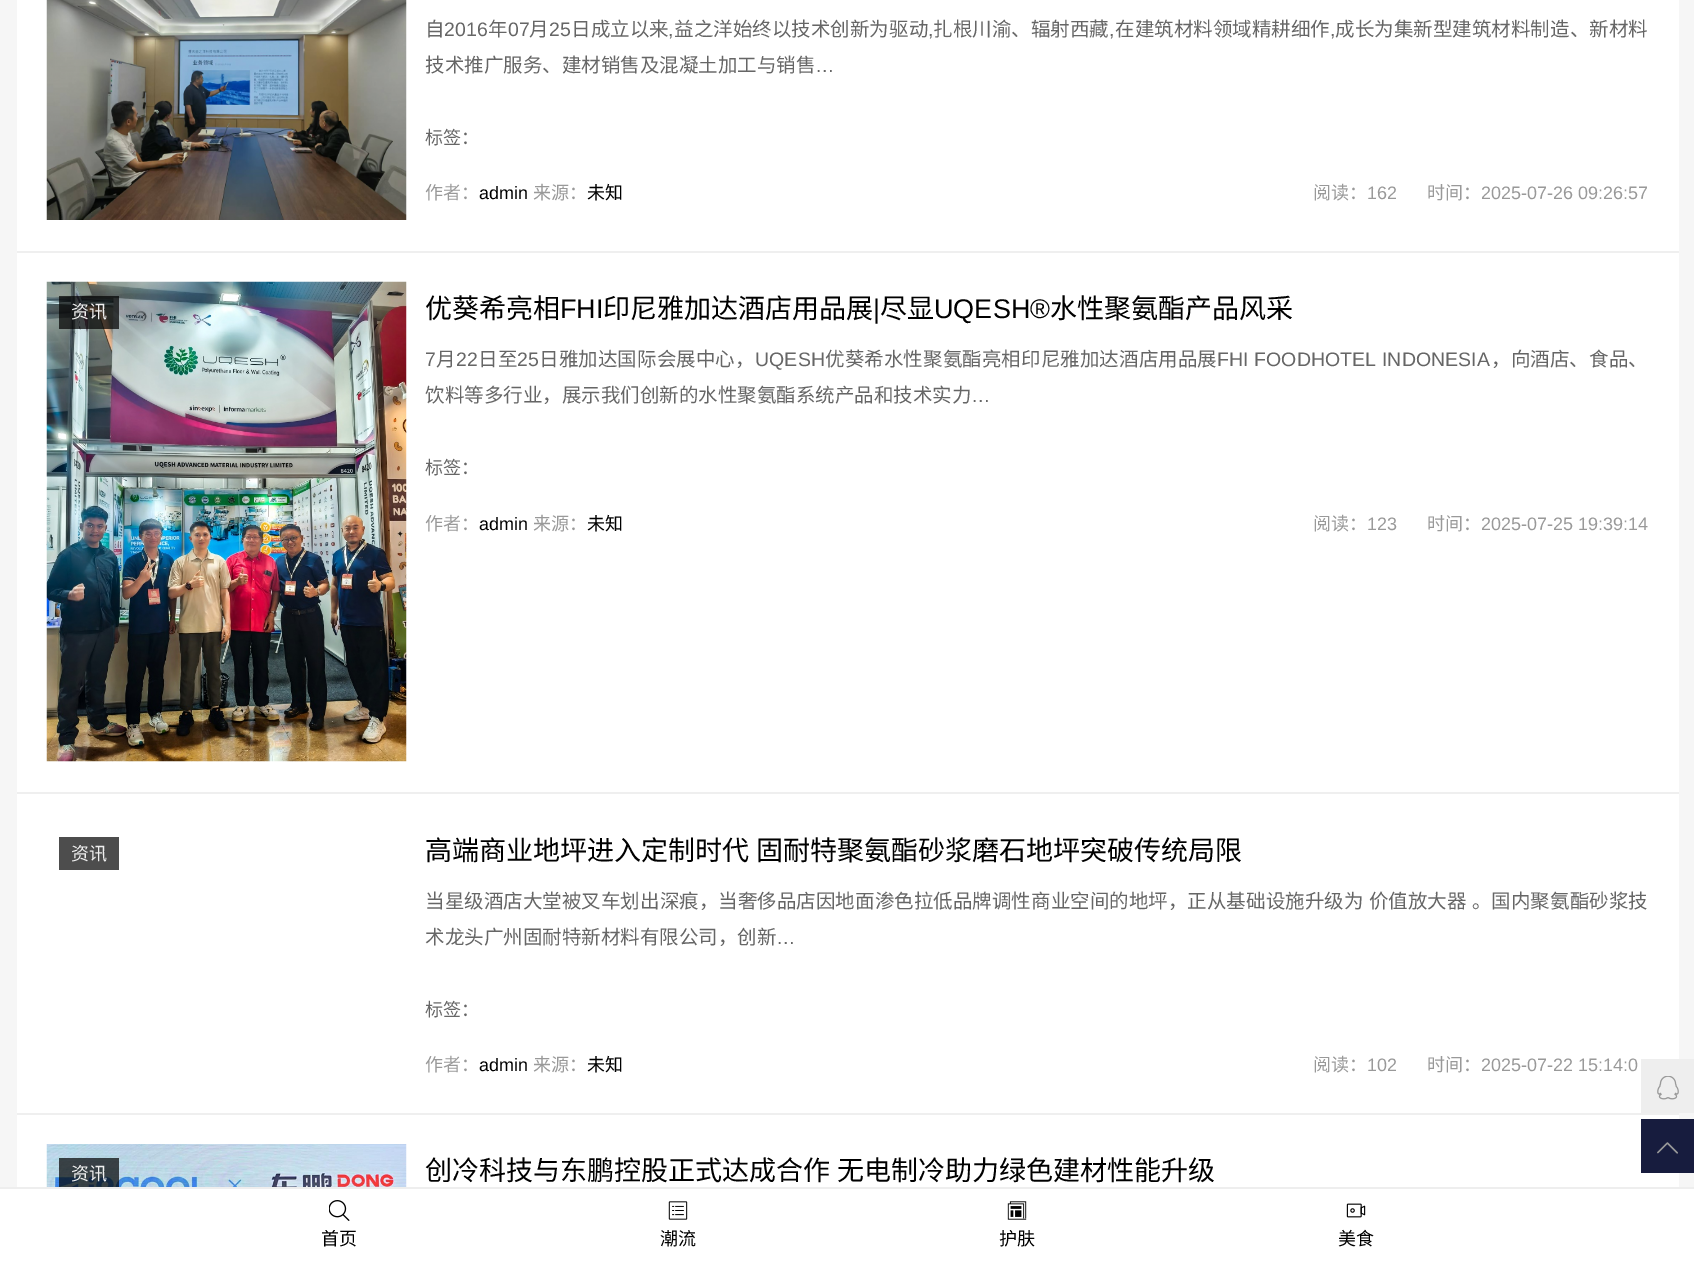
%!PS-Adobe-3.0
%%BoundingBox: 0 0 1694 1262
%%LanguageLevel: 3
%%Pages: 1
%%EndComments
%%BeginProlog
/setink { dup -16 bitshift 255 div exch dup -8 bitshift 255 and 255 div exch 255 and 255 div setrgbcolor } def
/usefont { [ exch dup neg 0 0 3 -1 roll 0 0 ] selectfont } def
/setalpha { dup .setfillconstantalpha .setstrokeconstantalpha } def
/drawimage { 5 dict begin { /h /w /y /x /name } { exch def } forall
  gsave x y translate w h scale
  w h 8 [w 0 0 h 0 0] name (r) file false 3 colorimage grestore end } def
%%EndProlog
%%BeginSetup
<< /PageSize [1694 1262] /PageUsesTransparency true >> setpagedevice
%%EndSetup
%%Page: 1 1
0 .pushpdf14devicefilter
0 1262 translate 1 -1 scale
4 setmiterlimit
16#F6F6F6 setink
0 0 1694 1262 rectfill
16#FFFFFF setink
17 0 1662 1187 rectfill
16#EFEFEF setink
17 251 1662 2 rectfill
(img1.raw) 46 0 361 220 drawimage
/NotoSansCJKSC-Regular 19.5 usefont
16#666666 setink
425 36 moveto 0.05 0 (自) ashow
/LiberationSans-Regular 19.5 usefont
444 36 moveto 0.05 0 (2016) ashow
/NotoSansCJKSC-Regular 19.5 usefont
488 36 moveto 0.05 0 (年) ashow
/LiberationSans-Regular 19.5 usefont
508 36 moveto 0.05 0 (07) ashow
/NotoSansCJKSC-Regular 19.5 usefont
529 36 moveto 0.05 0 (月) ashow
/LiberationSans-Regular 19.5 usefont
549 36 moveto 0.05 0 (25) ashow
/NotoSansCJKSC-Regular 19.5 usefont
571 36 moveto 0.05 0 (日成立以来) ashow
/LiberationSans-Regular 19.5 usefont
668 36 moveto 0.05 0 (,) ashow
/NotoSansCJKSC-Regular 19.5 usefont
674 36 moveto 0.05 0 (益之洋始终以技术创新为驱动) ashow
/LiberationSans-Regular 19.5 usefont
928 36 moveto 0.05 0 (,) ashow
/NotoSansCJKSC-Regular 19.5 usefont
933 36 moveto 0.05 0 (扎根川渝、辐射西藏) ashow
/LiberationSans-Regular 19.5 usefont
1109 36 moveto 0.05 0 (,) ashow
/NotoSansCJKSC-Regular 19.5 usefont
1115 36 moveto 0.05 0 (在建筑材料领域精耕细作) ashow
/LiberationSans-Regular 19.5 usefont
1330 36 moveto 0.05 0 (,) ashow
/NotoSansCJKSC-Regular 19.5 usefont
1335 36 moveto 0.05 0 (成长为集新型建筑材料制造、新材料) ashow
425 72 moveto (技术推广服务、建材销售及混凝土加工与销售) show
/LiberationSans-Regular 19.5 usefont
815 72 moveto (…) show
/NotoSansCJKSC-Regular 18 usefont
425 144 moveto (标签：) show
16#999999 setink
425 199 moveto (作者：) show
/LiberationSans-Regular 18 usefont
16#000000 setink
479 199 moveto (admin) show
/NotoSansCJKSC-Regular 18 usefont
16#999999 setink
533 199 moveto (来源：) show
16#000000 setink
587 199 moveto (未知) show
16#999999 setink
1313 199 moveto (阅读：) show
/LiberationSans-Regular 18 usefont
1367 199 moveto (162) show
/NotoSansCJKSC-Regular 18 usefont
1427 199 moveto (时间：) show
/LiberationSans-Regular 18 usefont
1481 199 moveto (2025-07-26 09:26:57) show
16#EFEFEF setink
17 792 1662 2 rectfill
(img2.raw) 46 281 361 481 drawimage
/NotoSansCJKSC-Regular 27 usefont
16#000000 setink
425 318 moveto (优葵希亮相) show
/LiberationSans-Regular 27 usefont
560 318 moveto (FHI) show
/NotoSansCJKSC-Regular 27 usefont
603 318 moveto (印尼雅加达酒店用品展) show
/LiberationSans-Regular 27 usefont
873 318 moveto (|) show
/NotoSansCJKSC-Regular 27 usefont
880 318 moveto (尽显) show
/LiberationSans-Regular 27 usefont
934 318 moveto (UQESH®) show
/NotoSansCJKSC-Regular 27 usefont
1050 318 moveto (水性聚氨酯产品风采) show
0.7 setalpha
59 296 60 33 rectfill
/NotoSansCJKSC-Regular 18 usefont
1 setalpha
16#EFEFEF setink
71 318 moveto (资讯) show
/LiberationSans-Regular 19.5 usefont
16#666666 setink
425 366 moveto 0.1 0 (7) ashow
/NotoSansCJKSC-Regular 19.5 usefont
436 366 moveto 0.1 0 (月) ashow
/LiberationSans-Regular 19.5 usefont
456 366 moveto 0.1 0 (22) ashow
/NotoSansCJKSC-Regular 19.5 usefont
478 366 moveto 0.1 0 (日至) ashow
/LiberationSans-Regular 19.5 usefont
517 366 moveto 0.1 0 (25) ashow
/NotoSansCJKSC-Regular 19.5 usefont
539 366 moveto 0.1 0 (日雅加达国际会展中心，) ashow
/LiberationSans-Regular 19.5 usefont
755 366 moveto 0.1 0 (UQESH) ashow
/NotoSansCJKSC-Regular 19.5 usefont
825 366 moveto 0.1 0 (优葵希水性聚氨酯亮相印尼雅加达酒店用品展) ashow
/LiberationSans-Regular 19.5 usefont
1217 366 moveto 0.1 0 (FHI FOODHOTEL INDONESIA) ashow
/NotoSansCJKSC-Regular 19.5 usefont
1491 366 moveto 0.1 0 (，向酒店、食品、) ashow
425 402 moveto (饮料等多行业，展示我们创新的水性聚氨酯系统产品和技术实力) show
/LiberationSans-Regular 19.5 usefont
971 402 moveto (…) show
/NotoSansCJKSC-Regular 18 usefont
425 474 moveto (标签：) show
16#999999 setink
425 530 moveto (作者：) show
/LiberationSans-Regular 18 usefont
16#000000 setink
479 530 moveto (admin) show
/NotoSansCJKSC-Regular 18 usefont
16#999999 setink
533 530 moveto (来源：) show
16#000000 setink
587 530 moveto (未知) show
16#999999 setink
1313 530 moveto (阅读：) show
/LiberationSans-Regular 18 usefont
1367 530 moveto (123) show
/NotoSansCJKSC-Regular 18 usefont
1427 530 moveto (时间：) show
/LiberationSans-Regular 18 usefont
1481 530 moveto (2025-07-25 19:39:14) show
16#EFEFEF setink
17 1113 1662 2 rectfill
16#4D4D4D setink
59 837 60 33 rectfill
/NotoSansCJKSC-Regular 18 usefont
16#EFEFEF setink
71 860 moveto (资讯) show
/NotoSansCJKSC-Regular 27 usefont
16#000000 setink
425 860 moveto 1 0 32 (高端商业地坪进入定制时代 固耐特聚氨酯砂浆磨石地坪突破传统局限) widthshow
/NotoSansCJKSC-Regular 19.5 usefont
16#666666 setink
425 908 moveto 1 0 32 0.05 0 (当星级酒店大堂被叉车划出深痕，当奢侈品店因地面渗色拉低品牌调性商业空间的地坪，正从基础设施升级为 价值放大器 。国内聚氨酯砂浆技) awidthshow
425 944 moveto (术龙头广州固耐特新材料有限公司，创新) show
/LiberationSans-Regular 19.5 usefont
776 944 moveto (…) show
/NotoSansCJKSC-Regular 18 usefont
425 1016 moveto (标签：) show
16#999999 setink
425 1071 moveto (作者：) show
/LiberationSans-Regular 18 usefont
16#000000 setink
479 1071 moveto (admin) show
/NotoSansCJKSC-Regular 18 usefont
16#999999 setink
533 1071 moveto (来源：) show
16#000000 setink
587 1071 moveto (未知) show
16#999999 setink
1313 1071 moveto (阅读：) show
/LiberationSans-Regular 18 usefont
1367 1071 moveto (102) show
/NotoSansCJKSC-Regular 18 usefont
1427 1071 moveto (时间：) show
/LiberationSans-Regular 18 usefont
1481 1071 moveto (2025-07-22 15:14:0) show
(img3.raw) 46 1144 361 43 drawimage
/NotoSansCJKSC-Regular 27 usefont
16#000000 setink
425 1180 moveto (创冷科技与东鹏控股正式达成合作) show
837 1180 moveto (无电制冷助力绿色建材性能升级) show
0.7 setalpha
59 1158 60 29 rectfill
/NotoSansCJKSC-Regular 18 usefont
1 setalpha
16#EFEFEF setink
71 1180 moveto (资讯) show
16#EEEEEE setink
1641 1059 53 54 rectfill
(img4.raw) 1657 1076 22 24 drawimage
16#171C3E setink
1641 1119 53 54 rectfill
(img5.raw) 1657 1142 21 12 drawimage
16#FFFFFF setink
0 1189 1694 73 rectfill
16#EEEEEE setink
0 1187 1694 2 rectfill
(img6.raw) 329 1200 21 21 drawimage
16#000000 setink
321 1245 moveto (首页) show
(img7.raw) 668 1201 20 19 drawimage
660 1245 moveto (潮流) show
(img8.raw) 1007 1201 20 19 drawimage
999 1245 moveto (护肤) show
(img9.raw) 1346 1203 20 15 drawimage
1338 1245 moveto (美食) show
.poppdf14devicefilter showpage
%%EOF
